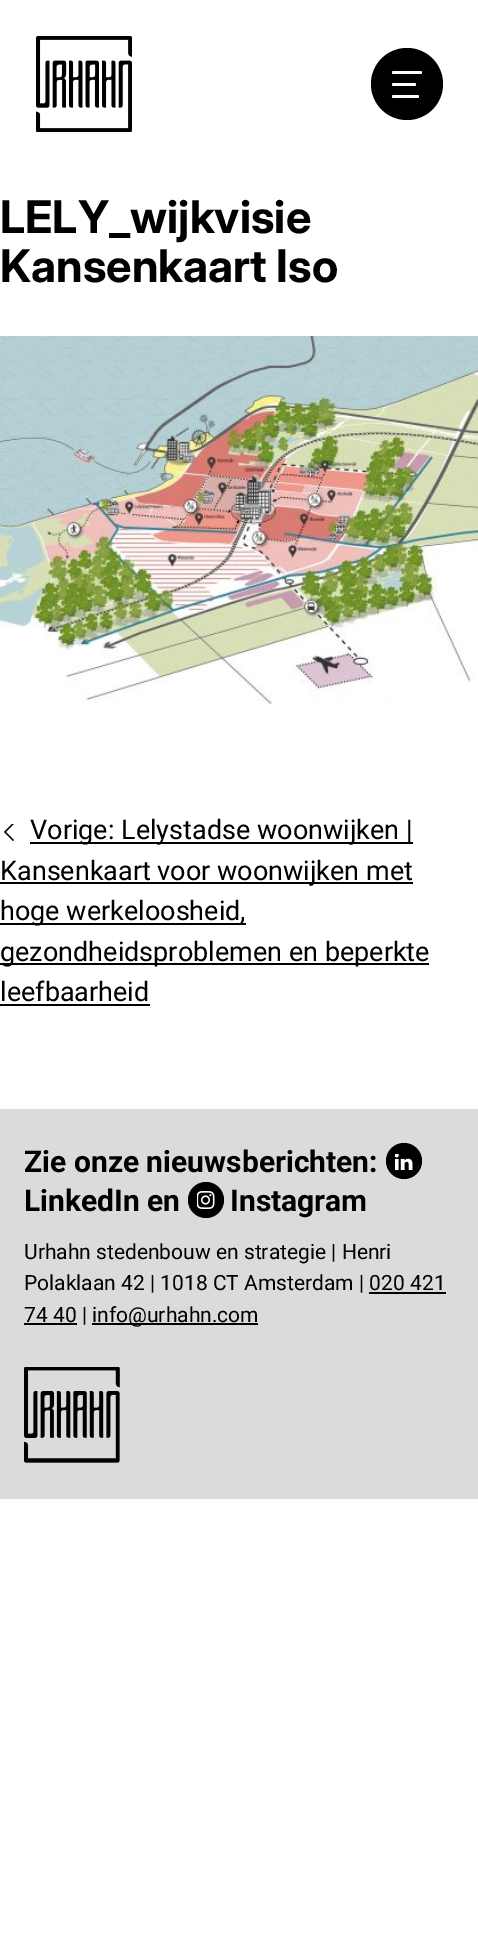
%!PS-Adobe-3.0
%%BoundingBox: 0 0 478 1953
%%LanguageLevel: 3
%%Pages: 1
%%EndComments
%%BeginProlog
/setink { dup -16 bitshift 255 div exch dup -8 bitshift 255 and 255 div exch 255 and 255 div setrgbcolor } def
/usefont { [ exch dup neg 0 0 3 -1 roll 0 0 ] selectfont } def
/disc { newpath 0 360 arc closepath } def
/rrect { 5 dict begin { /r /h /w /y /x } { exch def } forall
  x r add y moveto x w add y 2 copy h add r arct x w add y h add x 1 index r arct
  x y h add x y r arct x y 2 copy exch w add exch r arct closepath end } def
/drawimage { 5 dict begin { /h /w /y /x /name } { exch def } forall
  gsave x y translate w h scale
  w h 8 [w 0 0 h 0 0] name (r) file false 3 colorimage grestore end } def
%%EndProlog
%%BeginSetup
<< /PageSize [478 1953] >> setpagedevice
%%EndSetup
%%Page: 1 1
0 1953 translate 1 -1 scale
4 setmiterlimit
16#FFFFFF setink
0 0 478 1953 rectfill
(img1.raw) 36 36 96 96 drawimage
16#000000 setink
407 84 36 disc fill
16#FFFFFF setink
392 71 30 3 1.5 rrect fill
392 83 24 3 1.5 rrect fill
392 95 27 3 1.5 rrect fill
/Inter-Bold 45 usefont
16#000000 setink
0 233 moveto (LELY_wijkvisie) show
0 282 moveto (Kansenkaart Iso) show
(img2.raw) 0 336 478 368 drawimage
(img3.raw) 4 824 10 17 drawimage
30 842 383 2 rectfill
/Roboto-Regular 27 usefont
30 839 moveto (Vorige: Lelystadse woonwijken |) show
0 882 413 2 rectfill
0 880 moveto (Kansenkaart voor woonwijken met) show
0 923 246 2 rectfill
0 920 moveto (hoge werkeloosheid,) show
0 963 429 2 rectfill
0 961 moveto (gezondheidsproblemen en beperkte) show
0 1001 moveto (leefbaarheid) show
0 1004 150 2 rectfill
16#DBDBDB setink
0 1109 478 390 rectfill
/Roboto-Bold 30 usefont
16#000000 setink
24 1172 moveto (Zie onze nieuwsberichten:) show
404 1161 18 disc fill
(img4.raw) 395 1154 18 16 drawimage
24 1211 moveto (LinkedIn en) show
206 1200 18 disc fill
(img5.raw) 197 1191 18 18 drawimage
230 1211 moveto (Instagram) show
/Roboto-Regular 21 usefont
24 1259 moveto (Urhahn stedenbouw en strategie | Henri) show
24 1290 moveto (Polaklaan 42 | 1018 CT Amsterdam | 020 421) show
24 1323 53 2 rectfill
24 1322 moveto (74 40 |) show
369 1292 77 2 rectfill
92 1323 166 2 rectfill
92 1322 moveto (info@urhahn.com) show
(img6.raw) 24 1367 96 96 drawimage
showpage
%%EOF
